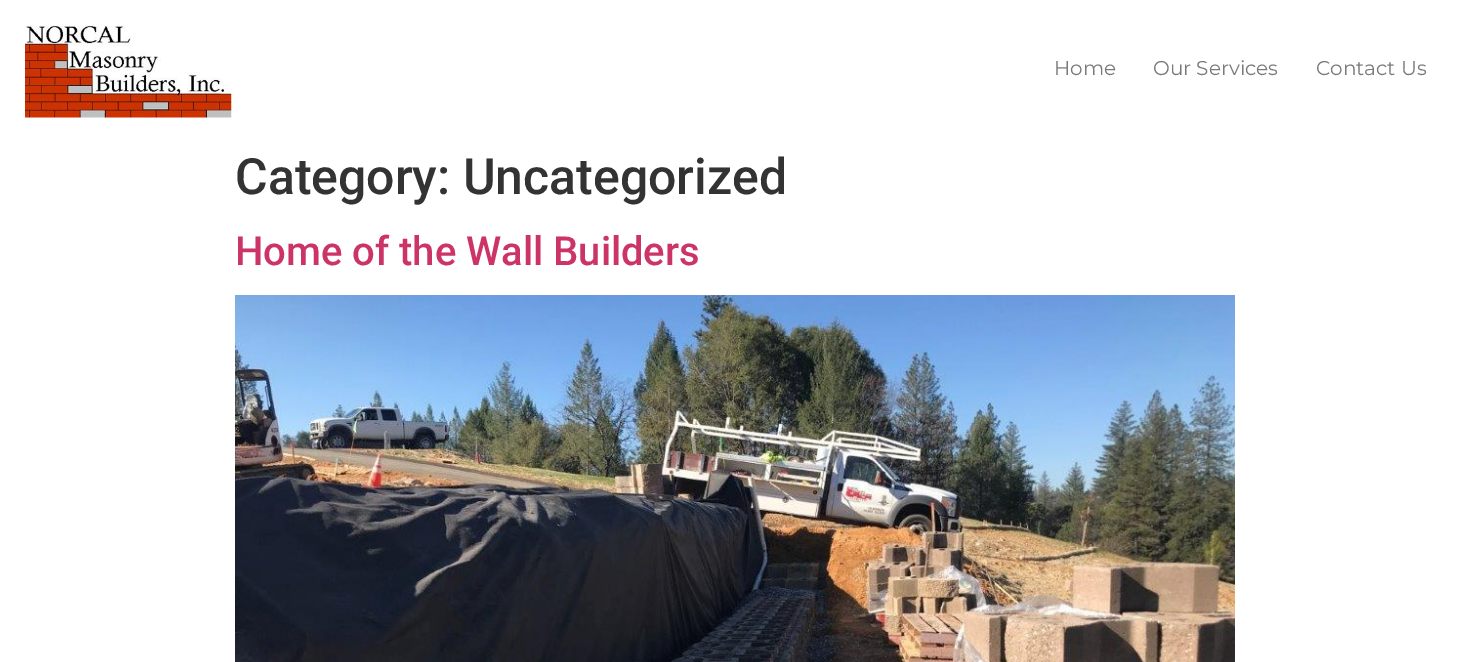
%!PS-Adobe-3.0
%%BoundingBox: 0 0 1469 662
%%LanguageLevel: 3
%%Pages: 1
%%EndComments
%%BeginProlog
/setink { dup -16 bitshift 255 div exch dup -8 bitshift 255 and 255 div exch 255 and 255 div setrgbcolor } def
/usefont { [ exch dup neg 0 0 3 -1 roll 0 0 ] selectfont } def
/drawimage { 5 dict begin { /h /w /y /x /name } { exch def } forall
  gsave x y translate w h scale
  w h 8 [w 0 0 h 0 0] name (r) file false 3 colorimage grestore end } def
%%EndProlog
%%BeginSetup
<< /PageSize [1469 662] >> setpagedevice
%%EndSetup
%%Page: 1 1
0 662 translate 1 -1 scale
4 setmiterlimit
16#FFFFFF setink
0 0 1469 662 rectfill
(img1.raw) 25 25 207 93 drawimage
/Montserrat-Regular 20 usefont
16#7A7A7A setink
[
    [(Home) 1054 75]
    [(Our Services) 1153 75]
    [(Contact Us) 1316 75]
] { aload pop moveto show } forall
/Roboto-Medium 50 usefont
16#333333 setink
235 194 moveto (Category: Uncategorized) show
/Roboto-Medium 40 usefont
16#CC3366 setink
235 265 moveto (Home of the Wall Builders) show
(img2.raw) 235 295 1000 367 drawimage
showpage
%%EOF
